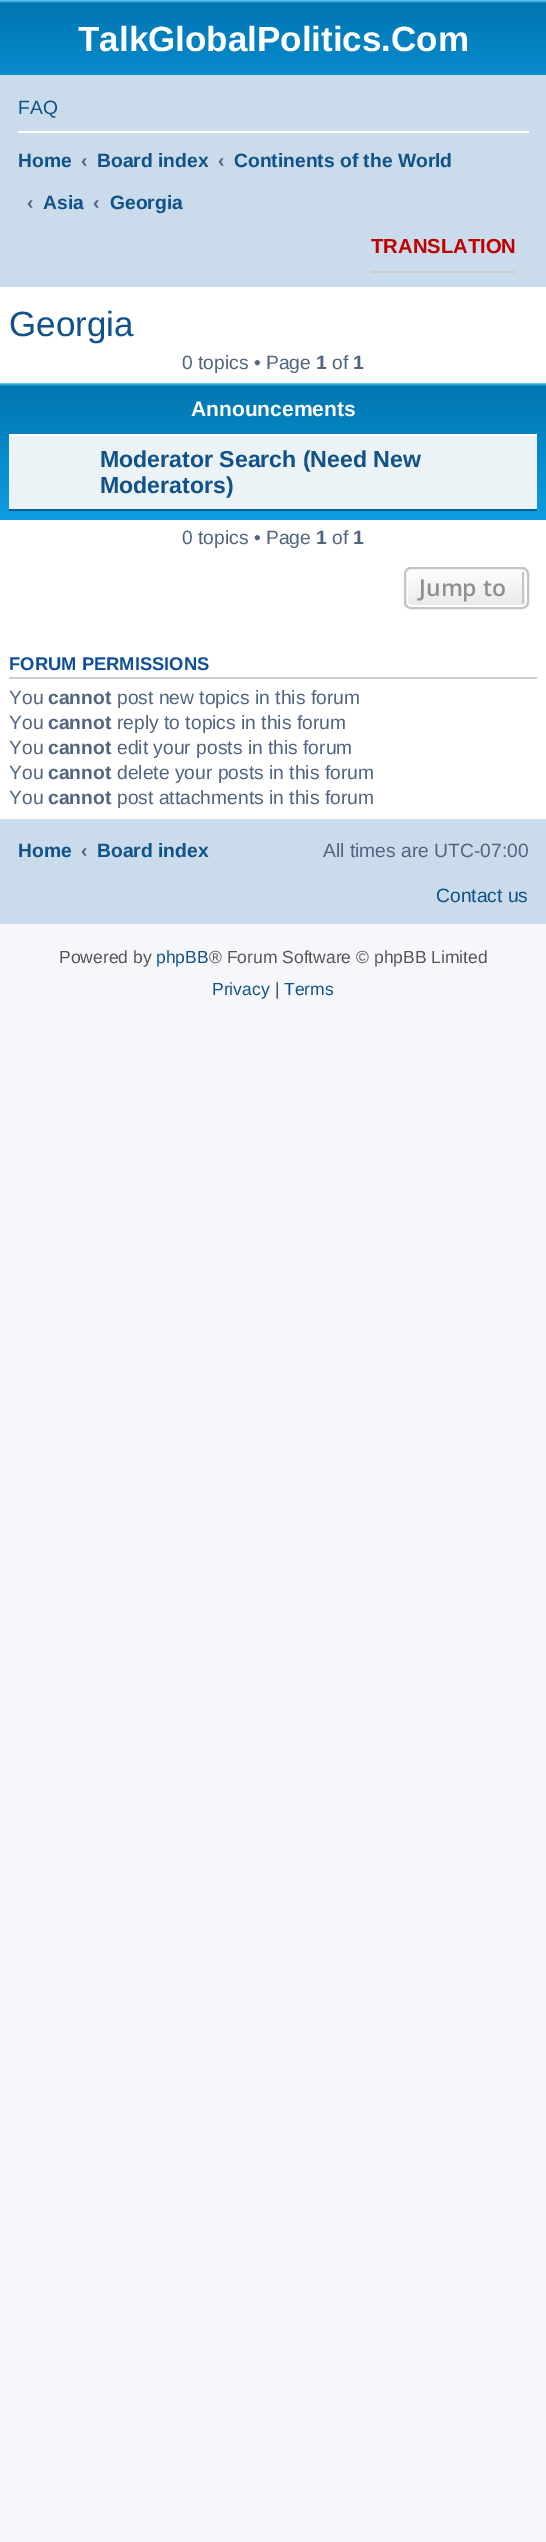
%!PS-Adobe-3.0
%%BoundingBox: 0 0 546 2542
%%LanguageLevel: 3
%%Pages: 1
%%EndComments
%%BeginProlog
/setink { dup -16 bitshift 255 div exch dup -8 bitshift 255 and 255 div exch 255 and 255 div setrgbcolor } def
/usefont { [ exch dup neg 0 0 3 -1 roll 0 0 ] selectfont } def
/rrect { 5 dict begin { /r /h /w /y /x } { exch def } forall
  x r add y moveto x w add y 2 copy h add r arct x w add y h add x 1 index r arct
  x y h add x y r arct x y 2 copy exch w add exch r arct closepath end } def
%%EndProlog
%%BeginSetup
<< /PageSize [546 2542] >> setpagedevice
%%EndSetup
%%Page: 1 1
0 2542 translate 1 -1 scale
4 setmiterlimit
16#F5F7FA setink
0 0 546 2542 rectfill
16#FFFFFF setink
0 287 546 532 rectfill
gsave 0 0 moveto 546 0 lineto 546 75 lineto 0 75 lineto closepath clip newpath
<< /ShadingType 2 /ColorSpace /DeviceRGB /Coords [273 0 273 161] /Extend [true true] /Function << /FunctionType 3 /Domain [0 1] /Functions [<< /FunctionType 2 /Domain [0 1] /C0 [0.416 0.808 1] /C1 [0 0.463 0.694] /N 1 >> << /FunctionType 2 /Domain [0 1] /C0 [0 0.463 0.694] /C1 [0.071 0.639 0.922] /N 1 >>] /Bounds [0.02] /Encode [0 1 0 1] >> >> shfill grestore
/LiberationSans-Bold 35 usefont
78 51 moveto (TalkGlobalPolitics.Com) show
16#CADCEB setink
0 75 546 212 rectfill
/LiberationSans-Regular 19.25 usefont
16#105289 setink
18 114 moveto (FAQ) show
16#FFFFFF setink
18 131 511 2 rectfill
/LiberationSans-Bold 19.25 usefont
16#105289 setink
18 167 moveto (Home) show
16#536482 setink
81 167 moveto (‹) show
16#105289 setink
97 167 moveto (Board index) show
16#536482 setink
218 167 moveto (‹) show
16#105289 setink
234 167 moveto (Continents of the World) show
16#536482 setink
27 209 moveto (‹) show
16#105289 setink
43 209 moveto (Asia) show
16#536482 setink
93 209 moveto (‹) show
16#105289 setink
110 209 moveto (Georgia) show
16#CCCCCC setink
371 271 145 2 rectfill
/LiberationSans-Bold 20.25 usefont
16#BF0000 setink
371 253 moveto (TRANSLATION) show
/LiberationSans-Regular 35 usefont
16#105289 setink
9 336 moveto (Georgia) show
/LiberationSans-Regular 19.25 usefont
16#536482 setink
182 369 moveto (0 topics • Page) show
/LiberationSans-Bold 19.25 usefont
316 369 moveto (1) show
/LiberationSans-Regular 19.25 usefont
332 369 moveto (of) show
/LiberationSans-Bold 19.25 usefont
353 369 moveto (1) show
gsave 0 383 moveto 546 383 lineto 546 520 lineto 0 520 lineto closepath clip newpath
<< /ShadingType 2 /ColorSpace /DeviceRGB /Coords [273 383 273 544] /Extend [true true] /Function << /FunctionType 3 /Domain [0 1] /Functions [<< /FunctionType 2 /Domain [0 1] /C0 [0.416 0.808 1] /C1 [0 0.463 0.694] /N 1 >> << /FunctionType 2 /Domain [0 1] /C0 [0 0.463 0.694] /C1 [0.071 0.639 0.922] /N 1 >>] /Bounds [0.02] /Encode [0 1 0 1] >> >> shfill grestore
/LiberationSans-Bold 21 usefont
16#FFFFFF setink
191 416 moveto (Announcements) show
[
    [9 436 528 73 16#ECF3F7]
    [9 434 528 2 16#FFFFFF]
    [9 509 528 2 16#00608F]
] { aload pop setink rectfill } forall
/LiberationSans-Bold 23.1 usefont
16#105289 setink
100 467 moveto (Moderator Search \(Need New) show
100 493 moveto (Moderators\)) show
/LiberationSans-Regular 19.25 usefont
16#536482 setink
182 544 moveto (0 topics • Page) show
/LiberationSans-Bold 19.25 usefont
316 544 moveto (1) show
/LiberationSans-Regular 19.25 usefont
332 544 moveto (of) show
/LiberationSans-Bold 19.25 usefont
353 544 moveto (1) show
gsave
404 567 125 42 7 rrect clip newpath
gsave 404 569 moveto 529 569 lineto 529 607 lineto 404 607 lineto closepath clip newpath
<< /ShadingType 2 /ColorSpace /DeviceRGB /Coords [466 569 466 607] /Extend [true true] /Function << /FunctionType 2 /Domain [0 1] /C0 [1 1 1] /C1 [0.914 0.914 0.914] /N 1 >> >> shfill grestore
grestore
16#FFFFFF setink
2 setlinewidth
407 570 119 36 4 rrect stroke
16#C7C3BF setink
405 568 123 40 6 rrect stroke
/OpenSans-SemiBold 23 usefont
16#8F8F8F setink
419 596 moveto (Jump to) show
16#C7C3BF setink
522 572 2 32 rectfill
16#CCCCCC setink
9 677 528 2 rectfill
/LiberationSans-Bold 18.4 usefont
16#115098 setink
9 670 moveto (FORUM PERMISSIONS) show
/LiberationSans-Regular 19.25 usefont
16#536482 setink
9 704 moveto (You) show
/LiberationSans-Bold 19.25 usefont
48 704 moveto (cannot) show
/LiberationSans-Regular 19.25 usefont
117 704 moveto (post new topics in this forum) show
9 729 moveto (You) show
/LiberationSans-Bold 19.25 usefont
48 729 moveto (cannot) show
/LiberationSans-Regular 19.25 usefont
117 729 moveto (reply to topics in this forum) show
9 754 moveto (You) show
/LiberationSans-Bold 19.25 usefont
48 754 moveto (cannot) show
/LiberationSans-Regular 19.25 usefont
117 754 moveto (edit your posts in this forum) show
9 779 moveto (You) show
/LiberationSans-Bold 19.25 usefont
48 779 moveto (cannot) show
/LiberationSans-Regular 19.25 usefont
117 779 moveto (delete your posts in this forum) show
9 804 moveto (You) show
/LiberationSans-Bold 19.25 usefont
48 804 moveto (cannot) show
/LiberationSans-Regular 19.25 usefont
117 804 moveto (post attachments in this forum) show
16#CADCEB setink
0 819 546 105 rectfill
/LiberationSans-Bold 19.25 usefont
16#105289 setink
18 857 moveto (Home) show
16#536482 setink
81 857 moveto (‹) show
16#105289 setink
97 857 moveto (Board index) show
/LiberationSans-Regular 19.25 usefont
16#536482 setink
323 857 moveto (All times are UTC-07:00) show
16#105289 setink
436 902 moveto (Contact us) show
/LiberationSans-Regular 17.5 usefont
16#555555 setink
59 963 moveto (Powered by) show
16#105289 setink
156 963 moveto (phpBB) show
16#555555 setink
209 963 moveto (® Forum Software © phpBB Limited) show
16#105289 setink
212 995 moveto (Privacy) show
16#555555 setink
275 995 moveto (|) show
16#105289 setink
284 995 moveto (Terms) show
showpage
%%EOF
